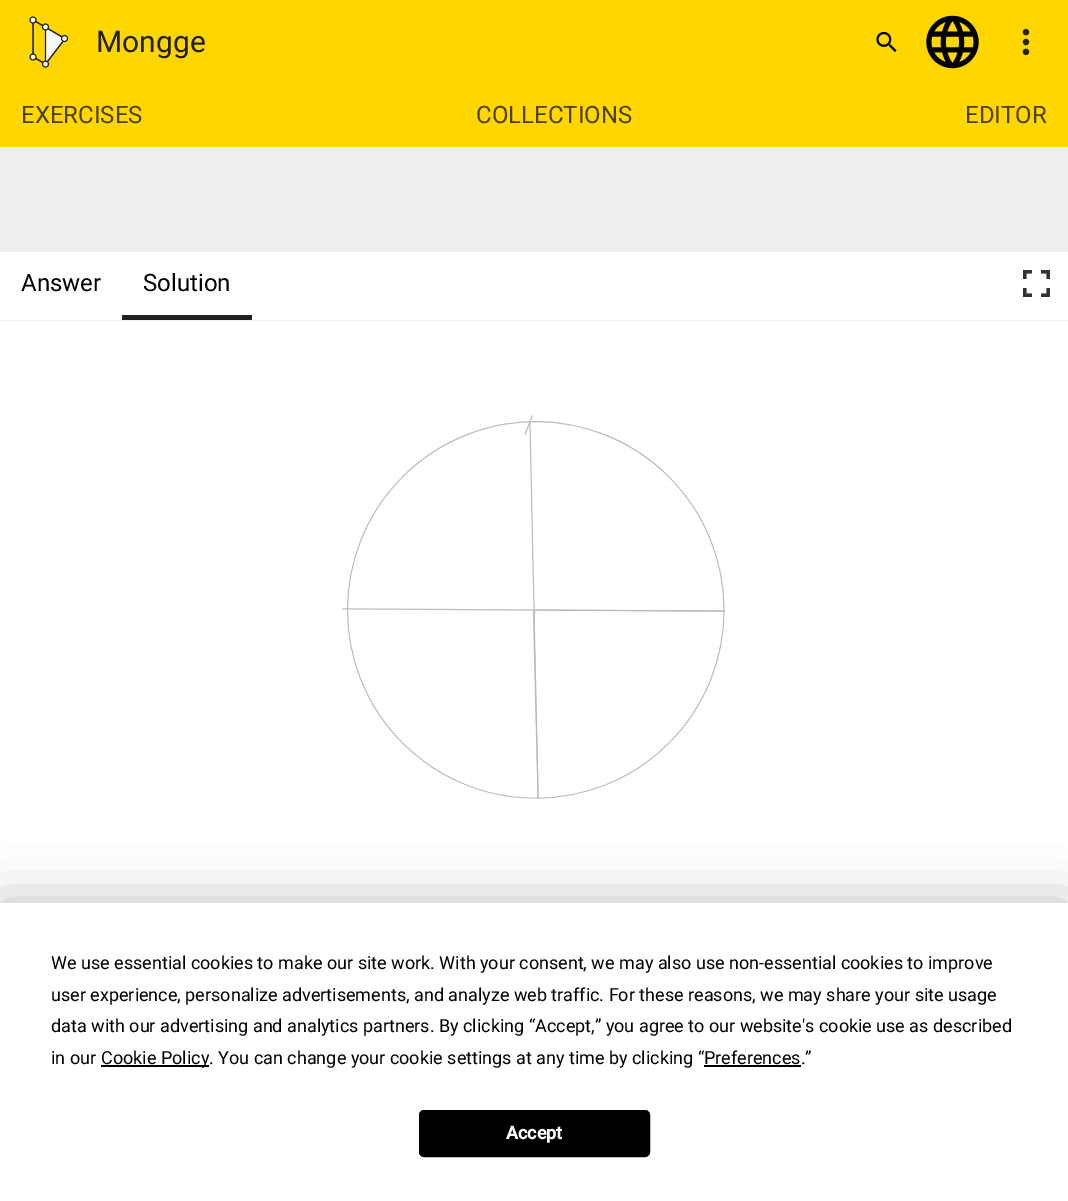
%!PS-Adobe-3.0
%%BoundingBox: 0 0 1068 1201
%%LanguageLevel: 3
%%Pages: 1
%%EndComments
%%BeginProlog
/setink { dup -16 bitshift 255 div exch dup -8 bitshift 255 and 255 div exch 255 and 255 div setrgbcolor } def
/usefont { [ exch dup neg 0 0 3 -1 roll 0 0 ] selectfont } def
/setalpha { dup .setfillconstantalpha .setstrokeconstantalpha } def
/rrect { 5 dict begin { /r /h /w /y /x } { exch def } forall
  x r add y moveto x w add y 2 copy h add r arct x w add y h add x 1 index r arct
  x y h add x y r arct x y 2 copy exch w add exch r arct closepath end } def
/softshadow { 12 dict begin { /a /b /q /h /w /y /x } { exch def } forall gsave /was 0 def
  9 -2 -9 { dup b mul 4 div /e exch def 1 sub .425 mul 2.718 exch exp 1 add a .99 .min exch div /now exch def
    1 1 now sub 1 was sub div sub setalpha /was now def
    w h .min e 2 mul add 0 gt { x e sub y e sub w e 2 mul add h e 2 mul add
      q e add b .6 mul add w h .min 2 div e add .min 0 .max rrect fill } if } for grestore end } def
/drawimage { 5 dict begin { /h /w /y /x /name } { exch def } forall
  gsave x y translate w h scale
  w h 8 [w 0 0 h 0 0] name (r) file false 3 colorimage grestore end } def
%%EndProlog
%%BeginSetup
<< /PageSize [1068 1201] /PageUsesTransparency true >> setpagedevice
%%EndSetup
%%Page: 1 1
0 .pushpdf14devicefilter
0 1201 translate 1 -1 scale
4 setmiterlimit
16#EEEEEE setink
0 0 1068 1201 rectfill
16#FFD600 setink
0 0 1068 147 rectfill
(img1.raw) 29 16 40 52 drawimage
/Roboto-Regular 30 usefont
16#212121 setink
96 52 moveto (Mongge) show
(img2.raw) 876 31 21 21 drawimage
(img3.raw) 926 15 53 54 drawimage
(img4.raw) 1022 28 8 28 drawimage
/Roboto-Regular 24 usefont
16#4D4000 setink
[
    [(EXERCISES) 21 123]
    [(COLLECTIONS) 476 123]
    [(EDITOR) 965 123]
] { aload pop moveto show } forall
16#FFFFFF setink
0 252 1068 651 rectfill
16#F5F5F5 setink
0 320 1068 2 rectfill
16#000000 setink
21 291 moveto (Answer) show
16#212121 setink
122 315 130 5 rectfill
16#000000 setink
143 291 moveto (Solution) show
(img5.raw) 1023 270 27 27 drawimage
(img6.raw) 342 415 383 384 drawimage
0 903 1068 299 0 26 0.25 softshadow
16#FFFFFF setink
0 903 1068 298 rectfill
/Roboto-Regular 18 usefont
16#000000 setink
[
    [(We use essential cookies to make our site work. With your consent, we may also use non-essential cookies to improve) 51 969]
    [(user experience, personalize advertisements, and analyze web traffic. For these reasons, we may share your site usage) 51 1001]
    [(data with our advertising and analytics partners. By clicking “Accept,” you agree to our website's cookie use as described) 51 1032]
    [(in our) 51 1064]
] { aload pop moveto show } forall
101 1065 108 2 rectfill
101 1064 moveto (Cookie Policy. You can change your cookie settings at any time by clicking “Preferences.”) show
704 1065 97 2 rectfill
420 1111 229 45 4 rrect gsave fill grestore
2 setlinewidth
stroke
/Roboto-Bold 18 usefont
16#FFFFFF setink
506 1139 moveto (Accept) show
.poppdf14devicefilter showpage
%%EOF
